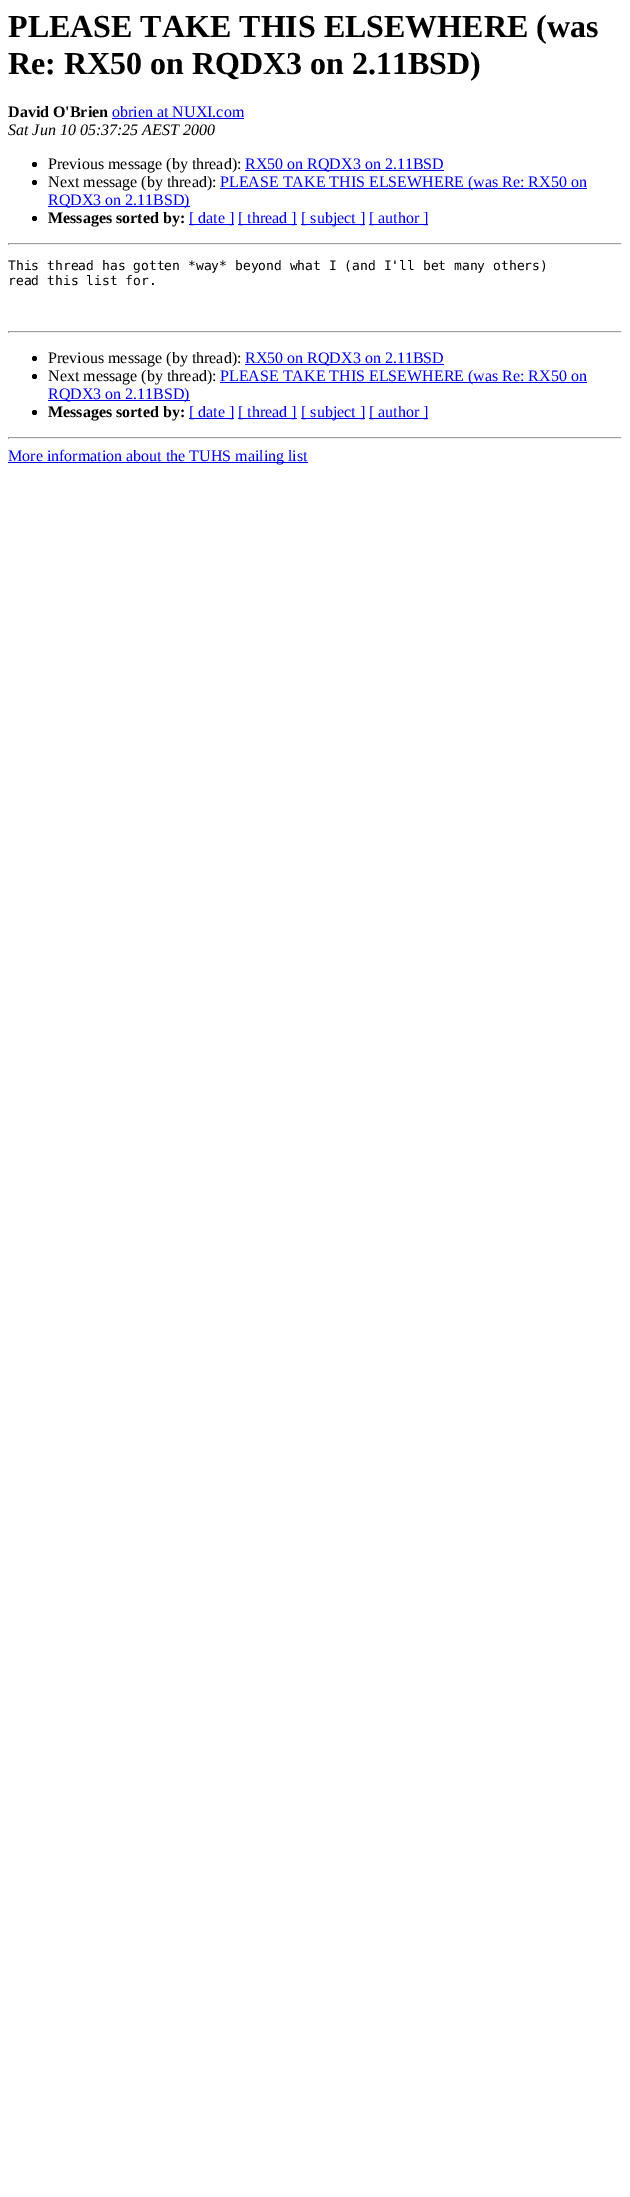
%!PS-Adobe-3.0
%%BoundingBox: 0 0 630 2197
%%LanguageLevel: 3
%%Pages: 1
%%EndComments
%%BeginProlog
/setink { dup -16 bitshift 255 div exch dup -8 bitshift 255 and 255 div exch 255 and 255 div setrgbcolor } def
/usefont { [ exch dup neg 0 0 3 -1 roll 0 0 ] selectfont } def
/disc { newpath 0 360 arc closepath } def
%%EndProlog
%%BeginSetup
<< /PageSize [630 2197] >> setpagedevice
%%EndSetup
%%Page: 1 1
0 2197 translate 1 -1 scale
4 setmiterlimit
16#FFFFFF setink
0 0 630 2197 rectfill
/LiberationSerif-Bold 32 usefont
16#000000 setink
8 37 moveto (PLEASE TAKE THIS ELSEWHERE \(was) show
8 74 moveto (Re: RX50 on RQDX3 on 2.11BSD\)) show
/LiberationSerif-Bold 16 usefont
8 117 moveto (David O'Brien) show
/LiberationSerif-Regular 16 usefont
16#0000EE setink
112 117 moveto (obrien at NUXI.com) show
112 118 132 1 rectfill
/LiberationSerif-Italic 16 usefont
16#000000 setink
8 135 moveto (Sat Jun 10 05:37:25 AEST 2000) show
34.5 164.5 2.5 disc fill
/LiberationSerif-Regular 16 usefont
48 169 moveto (Previous message \(by thread\):) show
16#0000EE setink
245 170 199 1 rectfill
245 169 moveto (RX50 on RQDX3 on 2.11BSD) show
16#000000 setink
34.5 182.5 2.5 disc fill
48 187 moveto (Next message \(by thread\):) show
16#0000EE setink
220 188 367 1 rectfill
220 187 moveto (PLEASE TAKE THIS ELSEWHERE \(was Re: RX50 on) show
48 206 142 1 rectfill
48 205 moveto (RQDX3 on 2.11BSD\)) show
16#000000 setink
34.5 218.5 2.5 disc fill
/LiberationSerif-Bold 16 usefont
48 223 moveto (Messages sorted by:) show
16#0000EE setink
189 224 45 1 rectfill
/LiberationSerif-Regular 16 usefont
189 223 moveto ([ date ]) show
238 224 59 1 rectfill
238 223 moveto ([ thread ]) show
301 224 64 1 rectfill
301 223 moveto ([ subject ]) show
369 224 59 1 rectfill
369 223 moveto ([ author ]) show
[
    [8 243 614 1 16#9F9F9F]
    [621 243 1 2 16#EEEEEE]
    [8 244 614 1 16#EEEEEE]
    [8 243 1 2 16#9F9F9F]
] { aload pop setink rectfill } forall
/DejaVuSansMono-Regular 13 usefont
16#000000 setink
8 270 moveto (This thread has gotten *way* beyond what I \(and I'll bet many others\)) show
8 285 moveto (read this list for.) show
[
    [8 331 614 1 16#9F9F9F]
    [621 331 1 2 16#EEEEEE]
    [8 332 614 1 16#EEEEEE]
    [8 331 1 2 16#9F9F9F]
] { aload pop setink rectfill } forall
16#000000 setink
34.5 358.5 2.5 disc fill
/LiberationSerif-Regular 16 usefont
48 363 moveto (Previous message \(by thread\):) show
16#0000EE setink
245 364 199 1 rectfill
245 363 moveto (RX50 on RQDX3 on 2.11BSD) show
16#000000 setink
34.5 376.5 2.5 disc fill
48 381 moveto (Next message \(by thread\):) show
16#0000EE setink
220 382 367 1 rectfill
220 381 moveto (PLEASE TAKE THIS ELSEWHERE \(was Re: RX50 on) show
48 400 142 1 rectfill
48 399 moveto (RQDX3 on 2.11BSD\)) show
16#000000 setink
34.5 412.5 2.5 disc fill
/LiberationSerif-Bold 16 usefont
48 417 moveto (Messages sorted by:) show
16#0000EE setink
189 418 45 1 rectfill
/LiberationSerif-Regular 16 usefont
189 417 moveto ([ date ]) show
238 418 59 1 rectfill
238 417 moveto ([ thread ]) show
301 418 64 1 rectfill
301 417 moveto ([ subject ]) show
369 418 59 1 rectfill
369 417 moveto ([ author ]) show
[
    [8 437 614 1 16#9F9F9F]
    [621 437 1 2 16#EEEEEE]
    [8 438 614 1 16#EEEEEE]
    [8 437 1 2 16#9F9F9F]
    [8 462 300 1 16#0000EE]
] { aload pop setink rectfill } forall
8 461 moveto (More information about the TUHS mailing list) show
showpage
%%EOF
